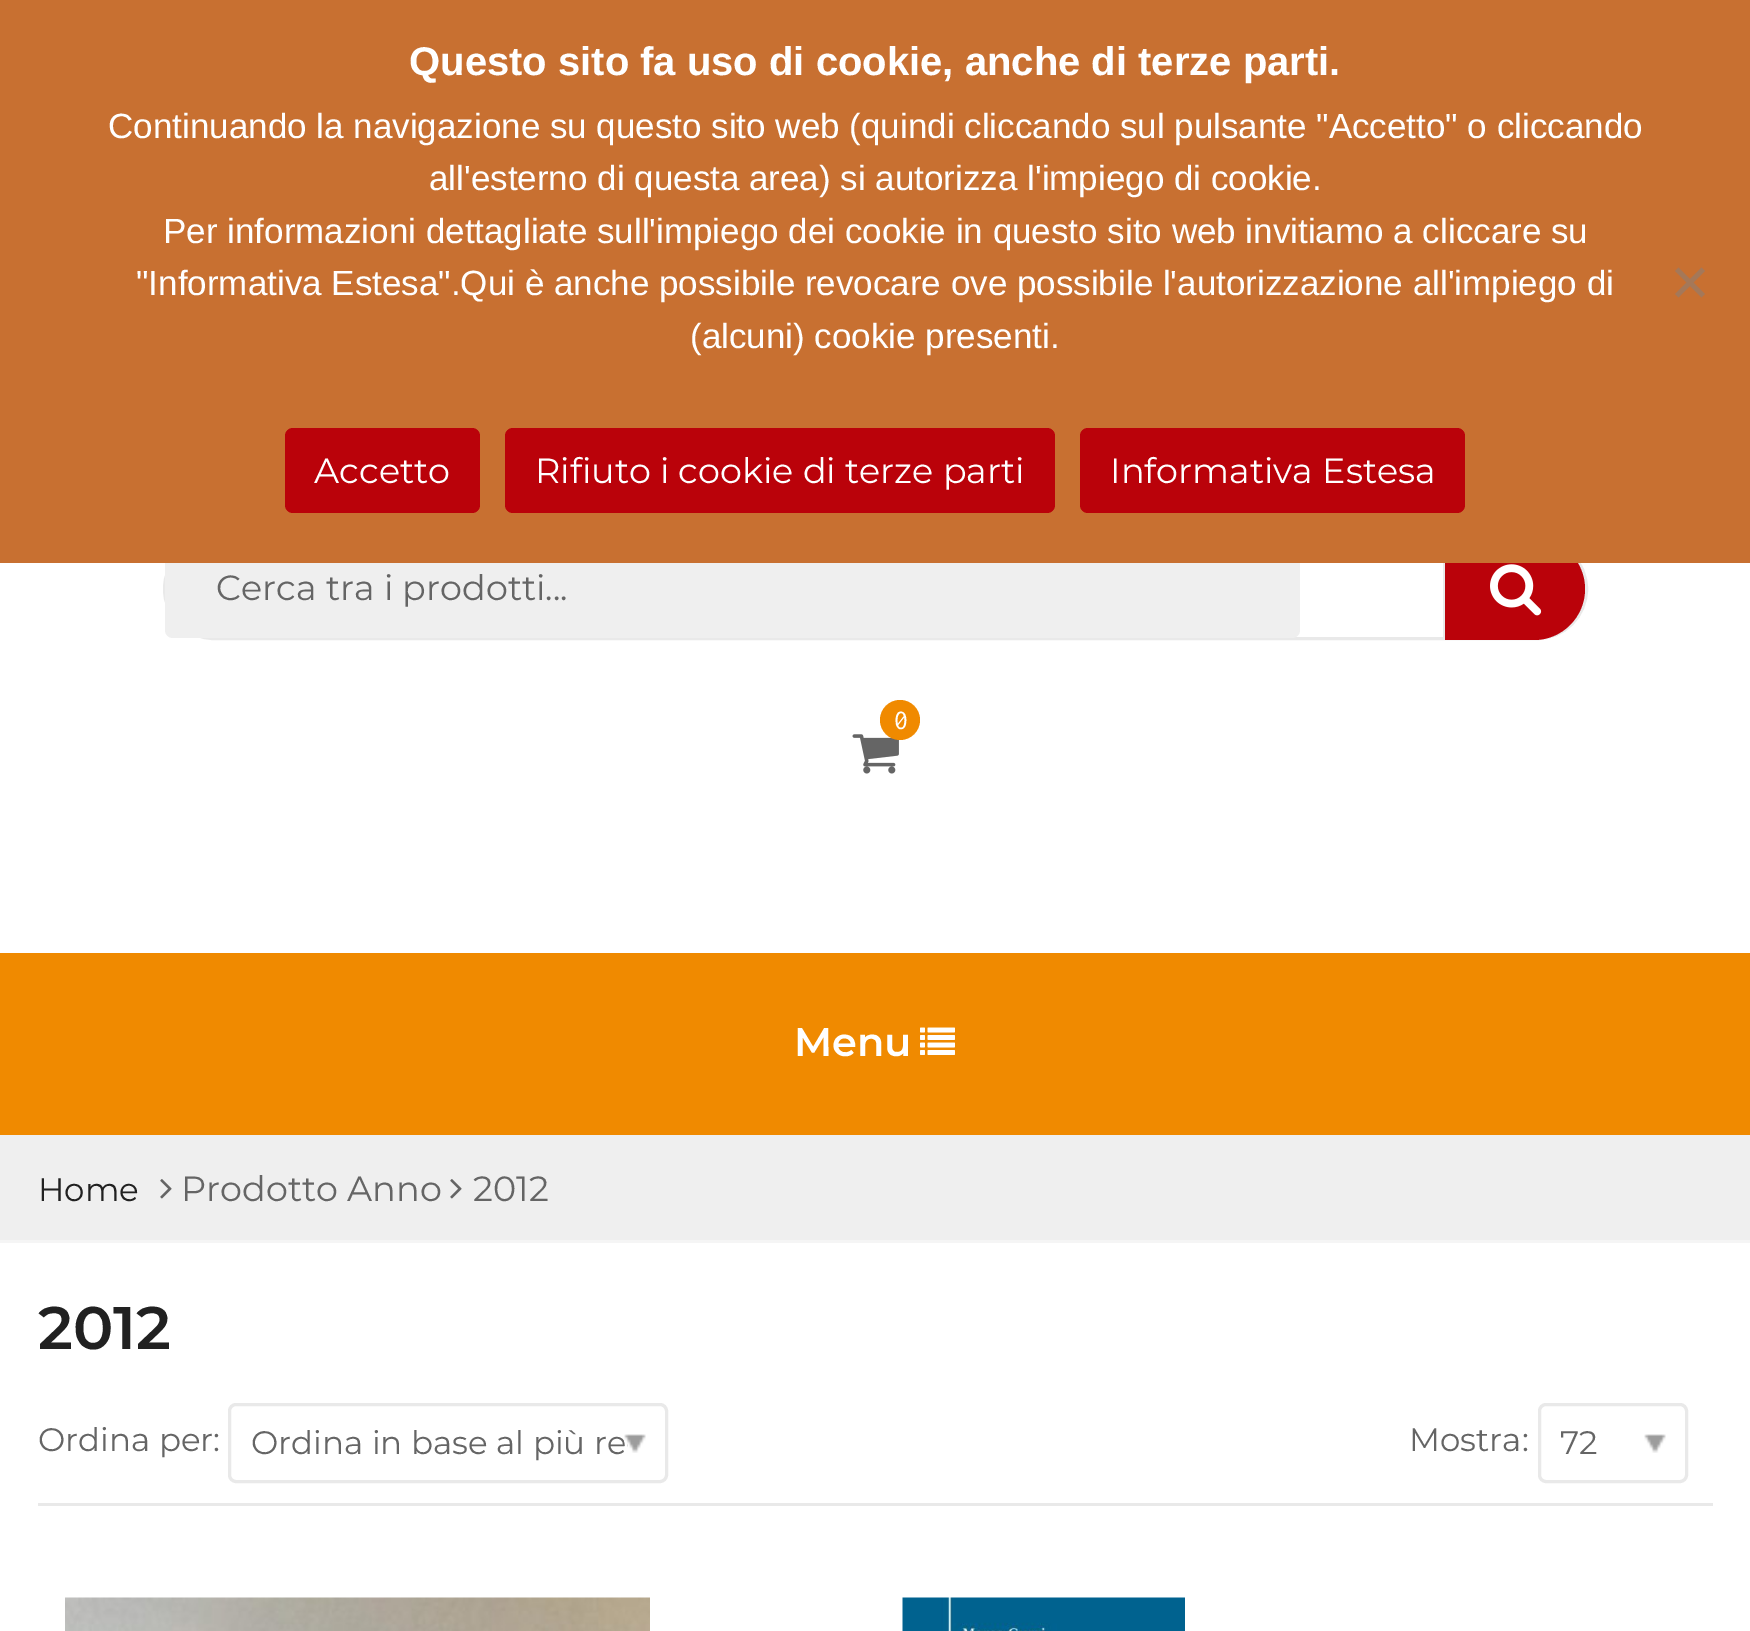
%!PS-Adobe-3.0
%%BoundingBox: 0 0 1750 1631
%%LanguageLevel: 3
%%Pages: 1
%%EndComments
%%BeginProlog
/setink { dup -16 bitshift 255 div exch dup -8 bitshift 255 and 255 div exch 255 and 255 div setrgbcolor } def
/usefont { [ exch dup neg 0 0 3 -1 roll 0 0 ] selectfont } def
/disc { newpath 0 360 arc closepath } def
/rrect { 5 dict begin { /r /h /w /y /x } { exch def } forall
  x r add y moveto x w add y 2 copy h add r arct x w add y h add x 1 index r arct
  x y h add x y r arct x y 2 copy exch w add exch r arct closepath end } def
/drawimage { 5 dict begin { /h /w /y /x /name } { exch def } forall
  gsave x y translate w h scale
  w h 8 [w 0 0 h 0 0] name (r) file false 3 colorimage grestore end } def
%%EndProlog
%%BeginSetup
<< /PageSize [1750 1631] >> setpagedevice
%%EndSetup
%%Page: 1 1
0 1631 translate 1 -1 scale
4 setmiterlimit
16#FFFFFF setink
0 0 1750 1631 rectfill
16#E9E9E9 setink
3 setlinewidth
164.5 539.5 1422 99 49.5 rrect stroke
16#EFEFEF setink
165 540 1135 98 8 rrect fill
16#BA020A setink
1445 538 moveto 1534 538 lineto 1562 538 1585 561 1585 589 curveto 1585 617 1562 640 1534 640 curveto 1445 640 lineto closepath fill
16#C87031 setink
0 0 1750 563 rectfill
/LiberationSans-Bold 40 usefont
16#FFFFFF setink
409 75 moveto (Questo sito fa uso di cookie, anche di terze parti.) show
/LiberationSans-Regular 35 usefont
[
    [(Continuando la navigazione su questo sito web \(quindi cliccando sul pulsante "Accetto" o cliccando) 108 138]
    [(all'esterno di questa area\) si autorizza l'impiego di cookie.) 429 190]
    [(Per informazioni dettagliate sull'impiego dei cookie in questo sito web invitiamo a cliccare su) 163 243]
    [("Informativa Estesa".Qui è anche possibile revocare ove possibile l'autorizzazione all'impiego di) 136 295]
    [(\(alcuni\) cookie presenti.) 690 348]
] { aload pop moveto show } forall
16#A47859 setink
1701.5 267.5 moveto 1705 271 lineto 1678.5 297.5 lineto 1675 294 lineto closepath fill
1675 271 moveto 1678.5 267.5 lineto 1705 294 lineto 1701.5 297.5 lineto closepath fill
16#BA020A setink
285 428 195 85 8 rrect fill
/Montserrat-Regular 35 usefont
16#FFFFFF setink
314 483 moveto (Accetto) show
16#BA020A setink
505 428 550 85 8 rrect fill
16#FFFFFF setink
535 483 moveto (Rifiuto i cookie di terze parti) show
16#BA020A setink
1080 428 385 85 8 rrect fill
16#FFFFFF setink
1110 483 moveto (Informativa Estesa) show
16#656565 setink
216 600 moveto (Cerca tra i prodotti...) show
16#E9E9E9 setink
1443 563 2 77 rectfill
(img1.raw) 1490 564 52 52 drawimage
(img2.raw) 852 734 47 40 drawimage
16#F08A00 setink
900 720 20 disc fill
/Inconsolata-Regular 28 usefont
16#FFFFFF setink
894 729 moveto (0) show
16#F08A00 setink
0 953 1750 182 rectfill
/Montserrat-SemiBold 40 usefont
16#FFFFFF setink
794 1056 moveto (Menu) show
(img3.raw) 920 1027 35 28 drawimage
16#EFEFEF setink
0 1135 1750 105 rectfill
16#F5F5F5 setink
0 1240 1750 3 rectfill
/Montserrat-Regular 32.5 usefont
16#212121 setink
38 1201 moveto (Home) show
(img4.raw) 160 1179 12 20 drawimage
/Montserrat-Regular 35 usefont
16#656565 setink
181 1201 moveto (Prodotto Anno) show
(img4.raw) 450 1179 12 20 drawimage
473 1201 moveto (2012) show
/Montserrat-SemiBold 60 usefont
16#212121 setink
38 1349 moveto (2012) show
16#E9E9E9 setink
38 1503 1675 3 rectfill
/Montserrat-Regular 32.5 usefont
16#656565 setink
38 1451 moveto (Ordina per:) show
16#E9E9E9 setink
229.5 1404.5 437 77 6.5 rrect stroke
16#656565 setink
251 1454 moveto (Ordina in base al più re) show
(img5.raw) 624 1434 22 19 drawimage
1409 1451 moveto (Mostra:) show
16#E9E9E9 setink
1539.5 1404.5 147 77 6.5 rrect stroke
16#656565 setink
1560 1454 moveto (72) show
(img6.raw) 1644 1434 22 19 drawimage
(img7.raw) 65 1597 585 34 drawimage
(img8.raw) 902 1597 283 34 drawimage
showpage
%%EOF
